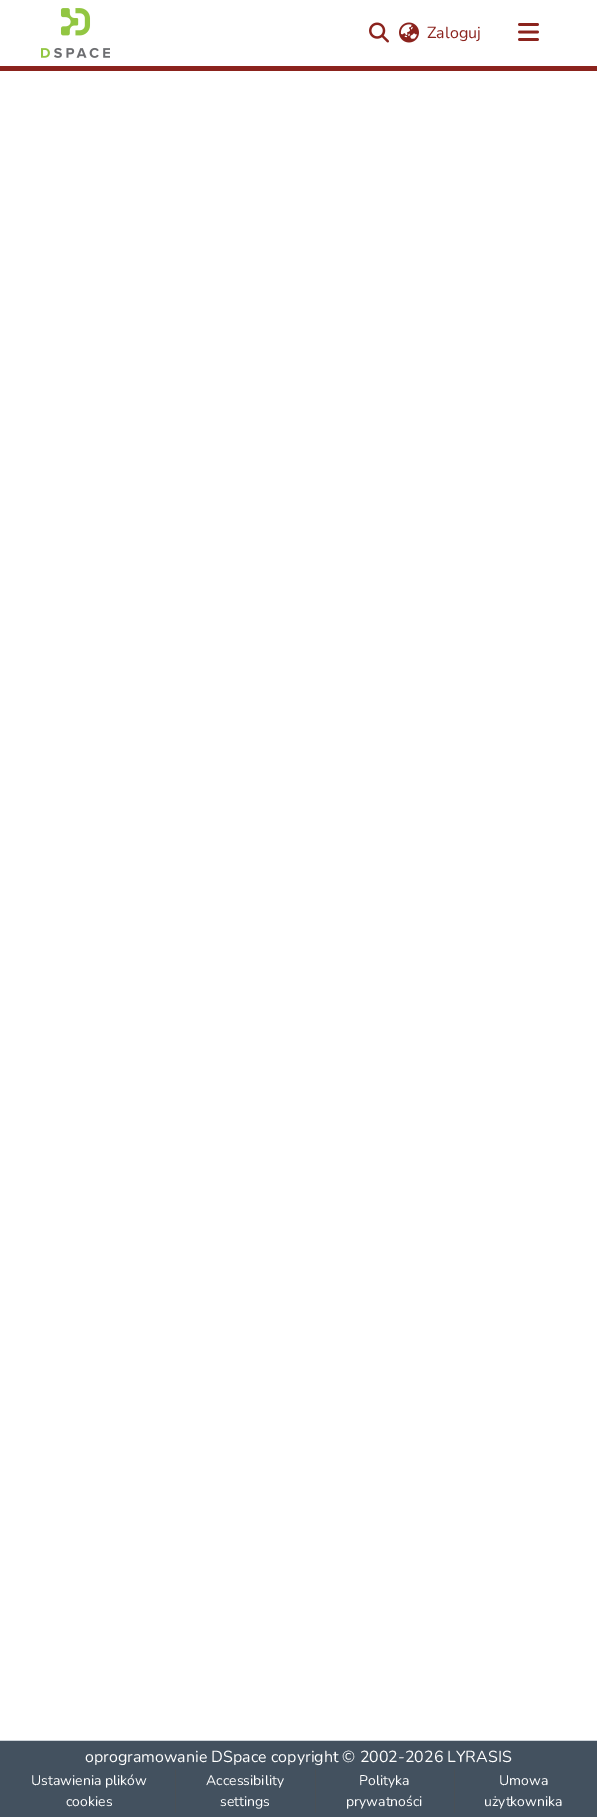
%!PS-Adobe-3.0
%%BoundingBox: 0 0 597 1817
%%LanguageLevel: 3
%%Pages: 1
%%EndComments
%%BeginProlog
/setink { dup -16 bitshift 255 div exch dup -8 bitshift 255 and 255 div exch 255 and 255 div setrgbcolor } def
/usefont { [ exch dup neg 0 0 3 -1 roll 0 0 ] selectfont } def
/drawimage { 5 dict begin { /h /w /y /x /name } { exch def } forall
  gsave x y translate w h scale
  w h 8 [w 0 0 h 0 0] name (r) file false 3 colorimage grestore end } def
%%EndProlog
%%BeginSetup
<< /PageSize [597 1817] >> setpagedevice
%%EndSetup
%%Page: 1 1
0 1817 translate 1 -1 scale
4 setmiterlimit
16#FFFFFF setink
0 0 597 1817 rectfill
16#8B231D setink
0 66 597 5 rectfill
(img1.raw) 41 8 69 50 drawimage
(img2.raw) 369 22 20 21 drawimage
(img3.raw) 399 22 20 21 drawimage
/Nunito-Regular 16 usefont
427 38 moveto (Zaloguj) show
(img4.raw) 518 23 21 18 drawimage
16#43515F setink
0 1741 597 76 rectfill
16#CED4DA setink
0 1740 597 1 rectfill
16#FFFFFF setink
85 1762 moveto (oprogramowanie DSpace copyright © 2002-2026 LYRASIS) show
/Nunito-Regular 14 usefont
31 1785 moveto (Ustawienia plików) show
66 1806 moveto (cookies) show
16#495057 setink
175 1769 1 44 rectfill
16#FFFFFF setink
206 1785 moveto (Accessibility) show
220 1806 moveto (settings) show
16#495057 setink
315 1769 1 44 rectfill
16#FFFFFF setink
359 1785 moveto (Polityka) show
346 1806 moveto (prywatności) show
16#495057 setink
454 1769 1 44 rectfill
16#FFFFFF setink
499 1785 moveto (Umowa) show
484 1806 moveto (użytkownika) show
showpage
%%EOF
